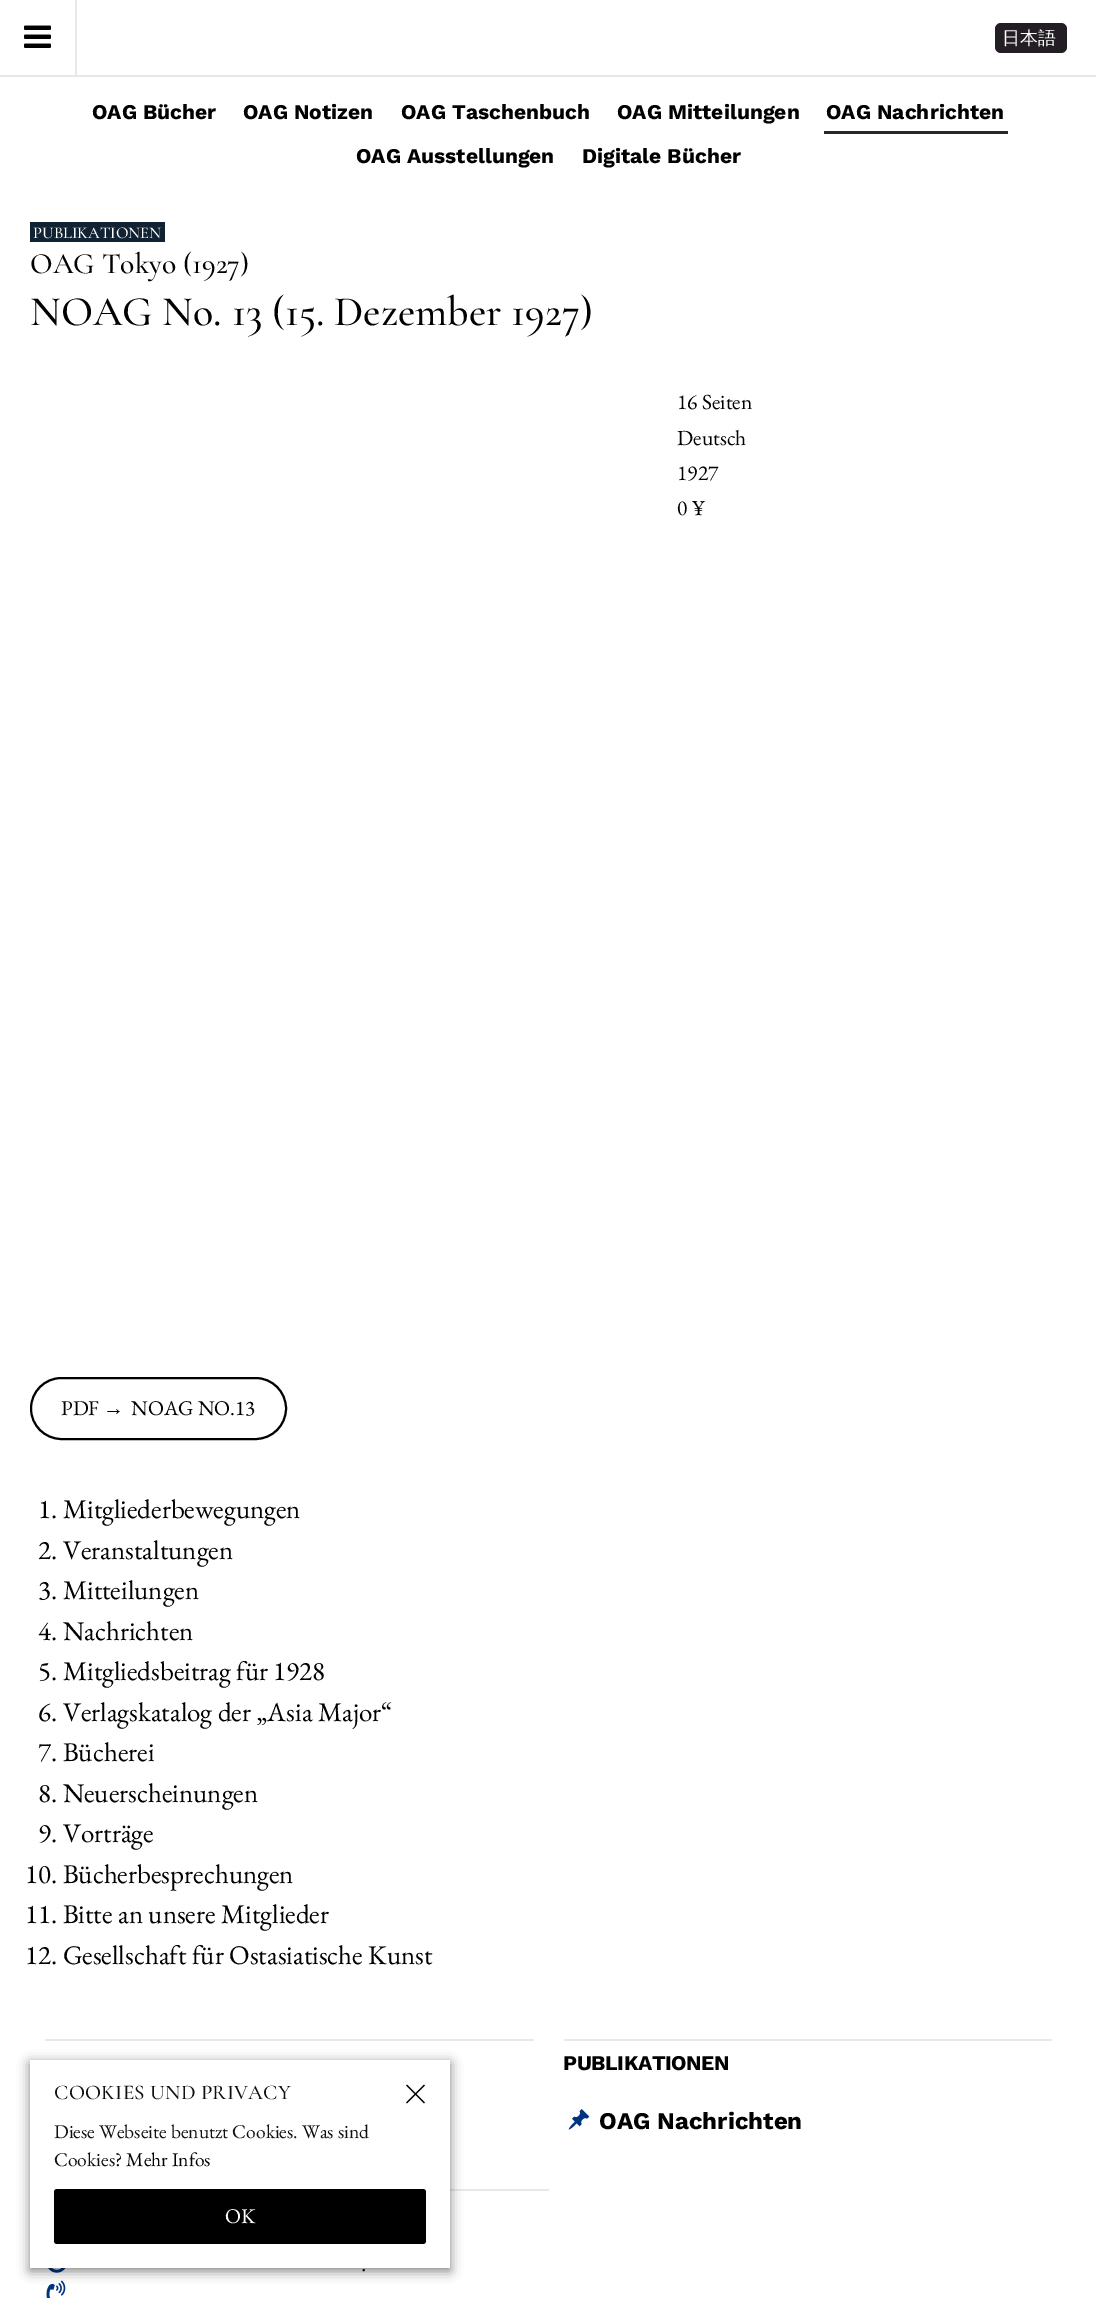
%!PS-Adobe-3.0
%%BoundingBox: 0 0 1096 2298
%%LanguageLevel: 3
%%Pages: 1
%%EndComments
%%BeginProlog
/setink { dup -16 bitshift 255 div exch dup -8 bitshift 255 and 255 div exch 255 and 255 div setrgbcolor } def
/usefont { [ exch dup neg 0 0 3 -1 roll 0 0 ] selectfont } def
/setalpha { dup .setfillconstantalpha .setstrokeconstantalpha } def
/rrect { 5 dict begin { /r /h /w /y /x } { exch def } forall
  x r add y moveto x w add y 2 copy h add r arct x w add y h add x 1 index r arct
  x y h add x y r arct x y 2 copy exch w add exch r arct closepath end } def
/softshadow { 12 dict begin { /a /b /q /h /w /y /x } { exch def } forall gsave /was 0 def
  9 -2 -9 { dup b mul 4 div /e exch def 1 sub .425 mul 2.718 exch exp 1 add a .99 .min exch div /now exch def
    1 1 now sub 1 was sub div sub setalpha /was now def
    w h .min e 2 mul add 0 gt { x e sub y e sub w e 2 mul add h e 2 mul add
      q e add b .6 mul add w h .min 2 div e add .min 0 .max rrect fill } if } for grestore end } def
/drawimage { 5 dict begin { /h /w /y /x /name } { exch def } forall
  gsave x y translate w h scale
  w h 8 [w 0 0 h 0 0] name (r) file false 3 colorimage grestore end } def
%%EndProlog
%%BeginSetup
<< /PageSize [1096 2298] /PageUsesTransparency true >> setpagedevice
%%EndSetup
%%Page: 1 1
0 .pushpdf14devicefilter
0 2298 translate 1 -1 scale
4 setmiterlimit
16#FFFFFF setink
0 0 1096 2298 rectfill
16#E8E8E8 setink
0 75 1096 2 rectfill
75 0 2 75 rectfill
(img1.raw) 24 25 27 23 drawimage
16#231E24 setink
995 23 72 30 6 rrect fill
/WenQuanYiZenHei-Medium 18 usefont
16#FFFFFF setink
1002 44 moveto (日本語) show
/WorkSans-Bold 21 usefont
16#000000 setink
[
    [(OAG Bücher) 92 119]
    [(OAG Notizen) 243 119]
    [(OAG Taschenbuch) 401 119]
    [(OAG Mitteilungen) 617 119]
] { aload pop moveto show } forall
16#282828 setink
824 131 184 3 rectfill
16#000000 setink
[
    [(OAG Nachrichten) 826 119]
    [(OAG Ausstellungen) 356 163]
    [(Digitale Bücher) 582 163]
] { aload pop moveto show } forall
16#112233 setink
30 222 135 20 rectfill
/CormorantGaramond-Medium 16.5 usefont
16#FFFFFF setink
33 238 moveto (PUBLIKATIONEN) show
/CormorantGaramond-Medium 29.5 usefont
16#000000 setink
30 273 moveto (OAG Tokyo \(1927\)) show
/CormorantGaramond-Medium 42 usefont
30 325 moveto (NOAG No. 13 \(15. Dezember 1927\)) show
/EBGaramond-Regular 21.5 usefont
[
    [(16 Seiten) 677 409]
    [(Deutsch) 677 445]
    [(1927) 677 480]
    [(0 ¥) 677 515]
] { aload pop moveto show } forall
2 setlinewidth
31 1378 255 61 30.5 rrect stroke
/EBGaramond-Regular 21 usefont
61 1415 moveto (PDF) show
/LiberationSerif-Regular 21 usefont
103 1415 moveto (→) show
/EBGaramond-Regular 21 usefont
131 1415 moveto (NOAG NO.13) show
/EBGaramond-Regular 27 usefont
[
    [(1. Mitgliederbewegungen) 38 1518]
    [(2. Veranstaltungen) 38 1559]
    [(3. Mitteilungen) 38 1599]
    [(4. Nachrichten) 38 1640]
    [(5. Mitgliedsbeitrag für 1928) 38 1680]
    [(6. Verlagskatalog der „Asia Major“) 38 1721]
    [(7. Bücherei) 38 1761]
    [(8. Neuerscheinungen) 38 1802]
    [(9. Vorträge) 38 1842]
    [(10. Bücherbesprechungen) 25 1883]
    [(11. Bitte an unsere Mitglieder) 25 1923]
    [(12. Gesellschaft für Ostasiatische Kunst) 25 1964]
] { aload pop moveto show } forall
16#E8E8E8 setink
45 2039 489 2 rectfill
564 2039 488 2 rectfill
/WorkSans-Bold 21 usefont
16#000000 setink
563 2070 moveto -0.4 0 (PUBLIKATIONEN) ashow
(img2.raw) 568 2109 22 21 drawimage
/WorkSans-Bold 24 usefont
599 2129 moveto (OAG Nachrichten) show
16#E8E8E8 setink
450 2189 99 2 rectfill
(img3.raw) 48 2268 18 5 drawimage
/CormorantGaramond-LightItalic 25 usefont
16#000000 setink
362 2271 moveto (.) show
(img4.raw) 46 2280 20 18 drawimage
30 2063 420 208 0 6 0.5 softshadow
16#FFFFFF setink
30 2060 420 208 rectfill
/CormorantGaramond-Medium 21 usefont
16#101010 setink
54 2099 moveto 0.25 0 (COOKIES UND PRIVACY) ashow
(img5.raw) 406 2084 19 20 drawimage
/EBGaramond-Regular 19.5 usefont
54 2138 moveto (Diese Webseite benutzt Cookies. Was sind) show
54 2166 moveto (Cookies?) show
16#000000 setink
126 2166 moveto (Mehr Infos) show
54 2189 372 55 3 rrect fill
/EBGaramond-Regular 21 usefont
16#FFFFFF setink
225 2223 moveto (OK) show
.poppdf14devicefilter showpage
%%EOF
